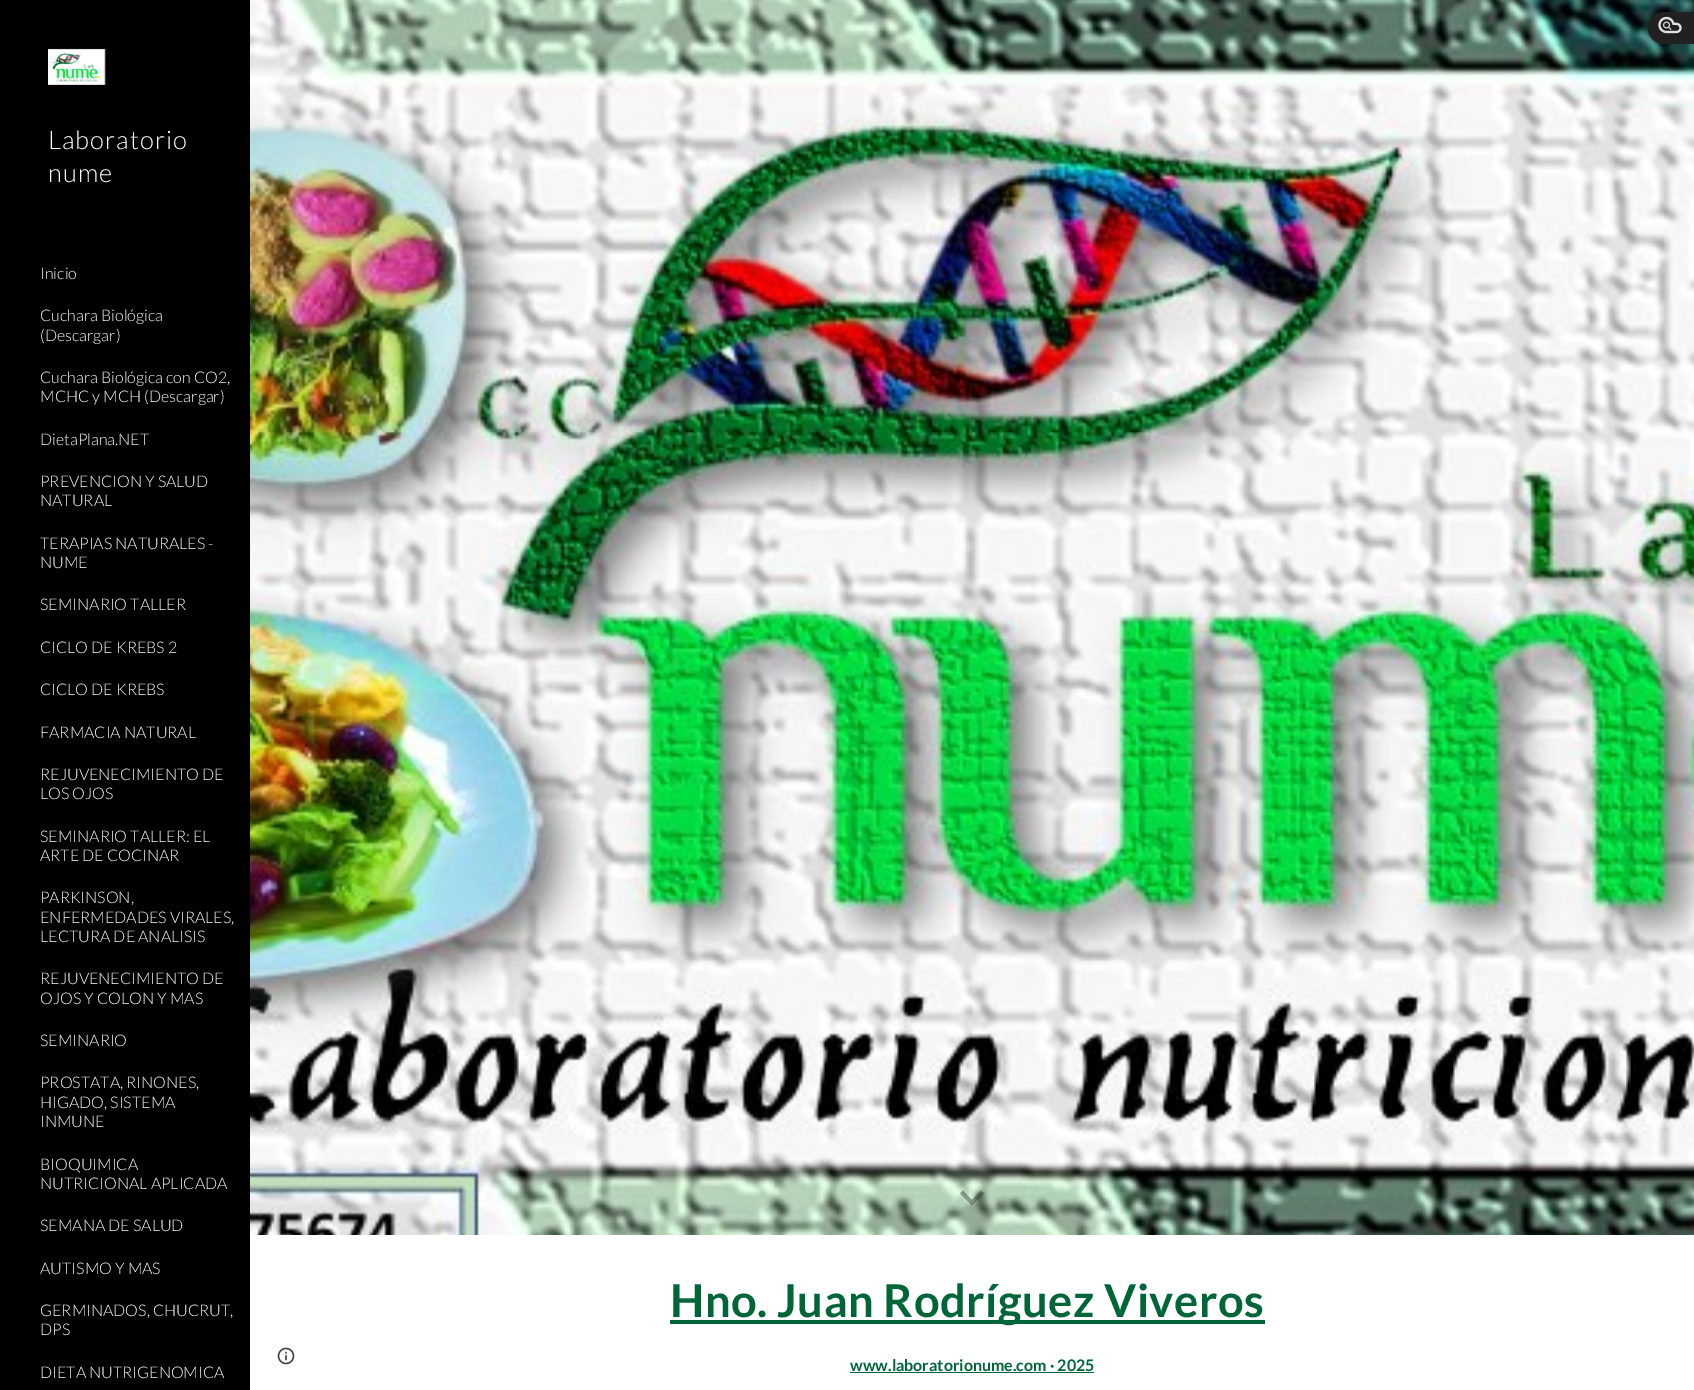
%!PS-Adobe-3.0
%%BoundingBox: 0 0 1694 1390
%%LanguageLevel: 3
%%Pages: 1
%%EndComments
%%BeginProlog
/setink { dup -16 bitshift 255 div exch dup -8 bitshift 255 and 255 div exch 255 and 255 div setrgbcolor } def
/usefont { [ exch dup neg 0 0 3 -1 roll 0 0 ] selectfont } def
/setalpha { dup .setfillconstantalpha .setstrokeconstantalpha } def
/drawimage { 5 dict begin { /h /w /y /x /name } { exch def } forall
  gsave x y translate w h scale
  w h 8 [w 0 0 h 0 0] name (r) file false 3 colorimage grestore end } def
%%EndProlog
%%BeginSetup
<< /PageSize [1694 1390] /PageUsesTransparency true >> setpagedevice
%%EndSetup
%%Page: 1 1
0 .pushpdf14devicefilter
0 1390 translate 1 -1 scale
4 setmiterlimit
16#FFFFFF setink
0 0 1694 1390 rectfill
(img4.raw) 250 0 1444 1235 drawimage
16#212121 setink
1664 12 moveto 1694 12 lineto 1694 44 lineto 1664 44 lineto 1655 44 1648 37 1648 28 curveto 1648 19 1655 12 1664 12 curveto closepath fill
(img1.raw) 1658 16 24 18 drawimage
16#000000 setink
0 0 250 1390 rectfill
(img2.raw) 48 48 58 37 drawimage
/Lato-Light 25.5 usefont
16#FFFFFF setink
48 149 moveto 1 0 (Laboratorio) ashow
48 182 moveto 1 0 (nume) ashow
/Lato-Light 16 usefont
[
    [(Inicio) 40 279]
    [(Cuchara Biológica) 40 321]
    [(\(Descargar\)) 40 341]
    [(Cuchara Biológica con CO2,) 40 383]
    [(MCHC y MCH \(Descargar\)) 40 402]
    [(DietaPlana.NET) 40 445]
    [(PREVENCION Y SALUD) 40 487]
    [(NATURAL) 40 506]
    [(TERAPIAS NATURALES -) 40 549]
    [(NUME) 40 568]
    [(SEMINARIO TALLER) 40 610]
    [(CICLO DE KREBS 2) 40 653]
    [(CICLO DE KREBS) 40 695]
    [(FARMACIA NATURAL) 40 738]
    [(REJUVENECIMIENTO DE) 40 780]
    [(LOS OJOS) 40 799]
    [(SEMINARIO TALLER: EL) 40 842]
    [(ARTE DE COCINAR) 40 861]
    [(PARKINSON,) 40 903]
    [(ENFERMEDADES VIRALES,) 40 923]
    [(LECTURA DE ANALISIS) 40 942]
    [(REJUVENECIMIENTO DE) 40 984]
    [(OJOS Y COLON Y MAS) 40 1004]
    [(SEMINARIO) 40 1046]
    [(PROSTATA, RINONES,) 40 1088]
    [(HIGADO, SISTEMA) 40 1108]
    [(INMUNE) 40 1127]
    [(BIOQUIMICA) 40 1170]
    [(NUTRICIONAL APLICADA) 40 1189]
    [(SEMANA DE SALUD) 40 1231]
    [(AUTISMO Y MAS) 40 1274]
    [(GERMINADOS, CHUCRUT,) 40 1316]
    [(DPS) 40 1335]
    [(DIETA NUTRIGENOMICA) 40 1378]
] { aload pop moveto show } forall
(img3.raw) 277 1347 18 18 drawimage
0.4 setalpha
16#212121 setink
963 1190.5 moveto 972 1200 lineto 981 1190.5 lineto 984 1193.5 lineto 972 1205.5 lineto 960 1193.5 lineto closepath fill
1 setalpha
16#006638 setink
670 1320 595 4 rectfill
/Lato-Bold 45.3 usefont
670 1317 moveto 0.5 0 (Hno. Juan Rodríguez Viveros) ashow
/Lato-Bold 16 usefont
850 1371 moveto (www.laboratorionume.com · 2025) show
850 1372 244 1 rectfill
.poppdf14devicefilter showpage
%%EOF
